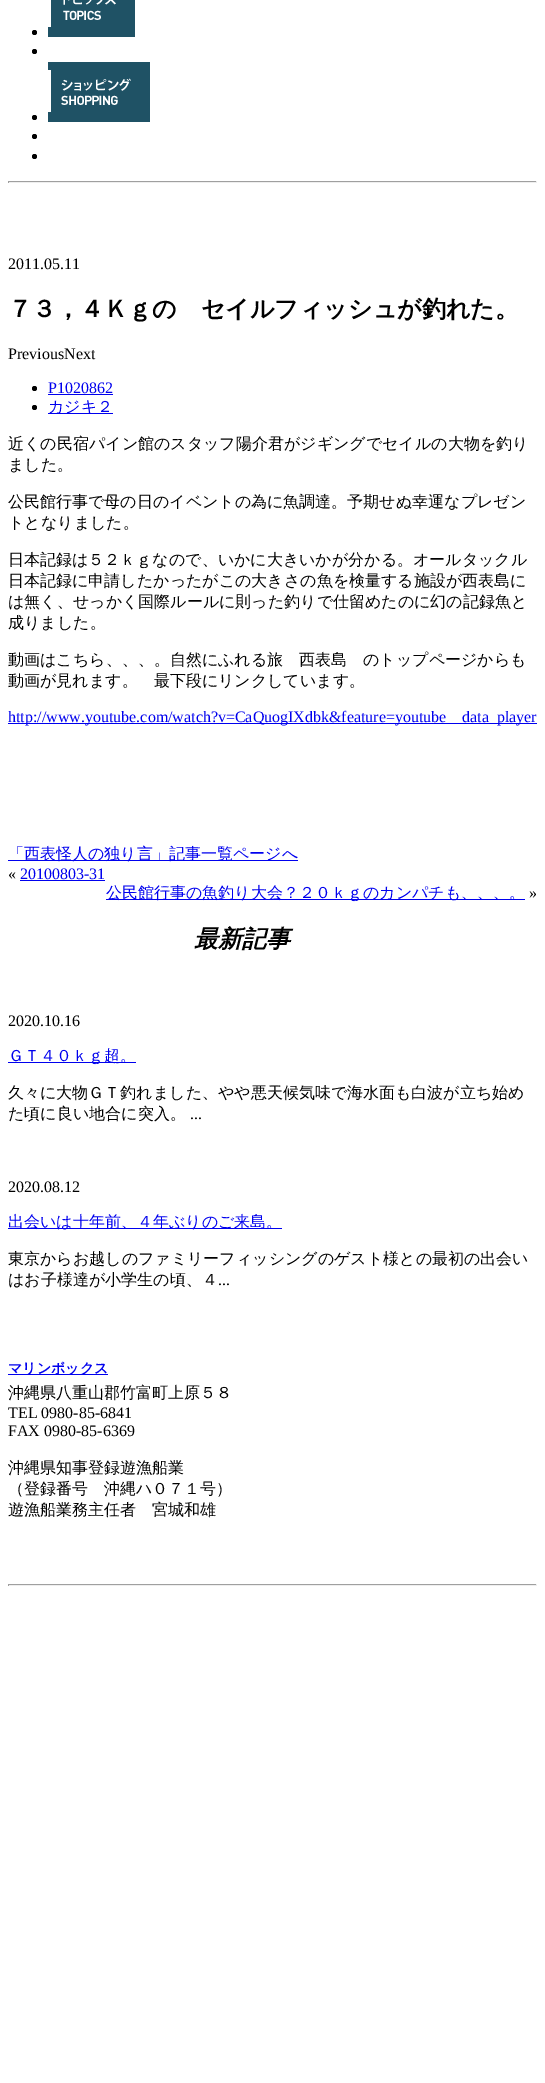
%!PS-Adobe-3.0
%%BoundingBox: 0 0 545 2083
%%LanguageLevel: 3
%%Pages: 1
%%EndComments
%%BeginProlog
/setink { dup -16 bitshift 255 div exch dup -8 bitshift 255 and 255 div exch 255 and 255 div setrgbcolor } def
/usefont { [ exch dup neg 0 0 3 -1 roll 0 0 ] selectfont } def
/disc { newpath 0 360 arc closepath } def
/drawimage { 5 dict begin { /h /w /y /x /name } { exch def } forall
  gsave x y translate w h scale
  w h 8 [w 0 0 h 0 0] name (r) file false 3 colorimage grestore end } def
%%EndProlog
%%BeginSetup
<< /PageSize [545 2083] >> setpagedevice
%%EndSetup
%%Page: 1 1
0 2083 translate 1 -1 scale
4 setmiterlimit
16#FFFFFF setink
0 0 545 2083 rectfill
16#000000 setink
34.5 32.5 2.5 disc fill
(img1.raw) 48 0 87 37 drawimage
34.5 51.5 2.5 disc fill
34.5 117.5 2.5 disc fill
(img2.raw) 48 62 102 60 drawimage
34.5 136.5 2.5 disc fill
34.5 156.5 2.5 disc fill
[
    [8 181 529 1 16#9F9F9F]
    [536 181 1 2 16#EEEEEE]
    [8 182 529 1 16#EEEEEE]
    [8 181 1 2 16#9F9F9F]
] { aload pop setink rectfill } forall
/LiberationSerif-Regular 16 usefont
16#000000 setink
8 269 moveto (2011.05.11) show
/WenQuanYiZenHei-Bold 24 usefont
8 317 moveto (７３，４Ｋｇの　セイルフィッシュが釣れた。) show
/LiberationSerif-Regular 16 usefont
8 359 moveto (PreviousNext) show
34.5 388.5 2.5 disc fill
16#0000EE setink
48 393 moveto (P1020862) show
48 394 65 1 rectfill
16#000000 setink
34.5 407.5 2.5 disc fill
16#0000EE setink
48 413 65 1 rectfill
/WenQuanYiZenHei-Medium 16 usefont
48 412 moveto (カジキ２) show
16#000000 setink
[
    [(近くの民宿パイン館のスタッフ陽介君がジギングでセイルの大物を釣り) 8 449]
    [(ました。) 8 470]
    [(公民館行事で母の日のイベントの為に魚調達。予期せぬ幸運なプレゼン) 8 507]
    [(トとなりました。) 8 528]
    [(日本記録は５２ｋｇなので、いかに大きいかが分かる。オールタックル) 8 565]
    [(日本記録に申請したかったがこの大きさの魚を検量する施設が西表島に) 8 586]
    [(は無く、せっかく国際ルールに則った釣りで仕留めたのに幻の記録魚と) 8 607]
    [(成りました。) 8 628]
    [(動画はこちら、、、。自然にふれる旅　西表島　のトップページからも) 8 665]
    [(動画が見れます。　最下段にリンクしています。) 8 686]
] { aload pop moveto show } forall
16#0000EE setink
8 723 529 1 rectfill
/LiberationSerif-Regular 16 usefont
8 722 moveto (http://www.youtube.com/watch?v=CaQuogIXdbk&feature=youtube) show
462 722 moveto (data_player) show
8 860 290 1 rectfill
/WenQuanYiZenHei-Medium 16 usefont
8 859 moveto (「西表怪人の独り言」記事一覧ページへ) show
/LiberationSerif-Regular 16 usefont
16#000000 setink
8 879 moveto («) show
16#0000EE setink
20 879 moveto (20100803-31) show
20 880 85 1 rectfill
106 899 419 1 rectfill
/WenQuanYiZenHei-Medium 16 usefont
106 898 moveto (公民館行事の魚釣り大会？２０ｋｇのカンパチも、、、。) show
/LiberationSerif-Regular 16 usefont
16#000000 setink
529 898 moveto (») show
/WenQuanYiZenHei-BoldItalic 24 usefont
194 947 moveto (最新記事) show
/LiberationSerif-Regular 16 usefont
8 1026 moveto (2020.10.16) show
16#0000EE setink
8 1062 128 1 rectfill
/WenQuanYiZenHei-Medium 16 usefont
8 1061 moveto (ＧＴ４０ｋｇ超。) show
16#000000 setink
8 1098 moveto (久々に大物ＧＴ釣れました、やや悪天候気味で海水面も白波が立ち始め) show
8 1119 moveto (た頃に良い地合に突入。) show
/LiberationSerif-Regular 16 usefont
190 1119 moveto (...) show
8 1192 moveto (2020.08.12) show
16#0000EE setink
8 1228 274 1 rectfill
/WenQuanYiZenHei-Medium 16 usefont
8 1227 moveto (出会いは十年前、４年ぶりのご来島。) show
16#000000 setink
8 1264 moveto (東京からお越しのファミリーフィッシングのゲスト様との最初の出会い) show
8 1285 moveto (はお子様達が小学生の頃、４) show
/LiberationSerif-Regular 16 usefont
218 1285 moveto (...) show
16#0000EE setink
8 1374 100 1 rectfill
/WenQuanYiZenHei-Bold 14 usefont
8 1373 moveto (マリンボックス) show
/WenQuanYiZenHei-Medium 16 usefont
16#000000 setink
8 1398 moveto (沖縄県八重山郡竹富町上原５８) show
/LiberationSerif-Regular 16 usefont
8 1418 moveto (TEL 0980-85-6841) show
8 1436 moveto (FAX 0980-85-6369) show
/WenQuanYiZenHei-Medium 16 usefont
[
    [(沖縄県知事登録遊漁船業) 8 1473]
    [(（登録番号　沖縄ハ０７１号）) 8 1494]
    [(遊漁船業務主任者　宮城和雄) 8 1515]
] { aload pop moveto show } forall
[
    [8 1584 529 1 16#9F9F9F]
    [536 1584 1 2 16#EEEEEE]
    [8 1585 529 1 16#EEEEEE]
    [8 1584 1 2 16#9F9F9F]
] { aload pop setink rectfill } forall
showpage
%%EOF
